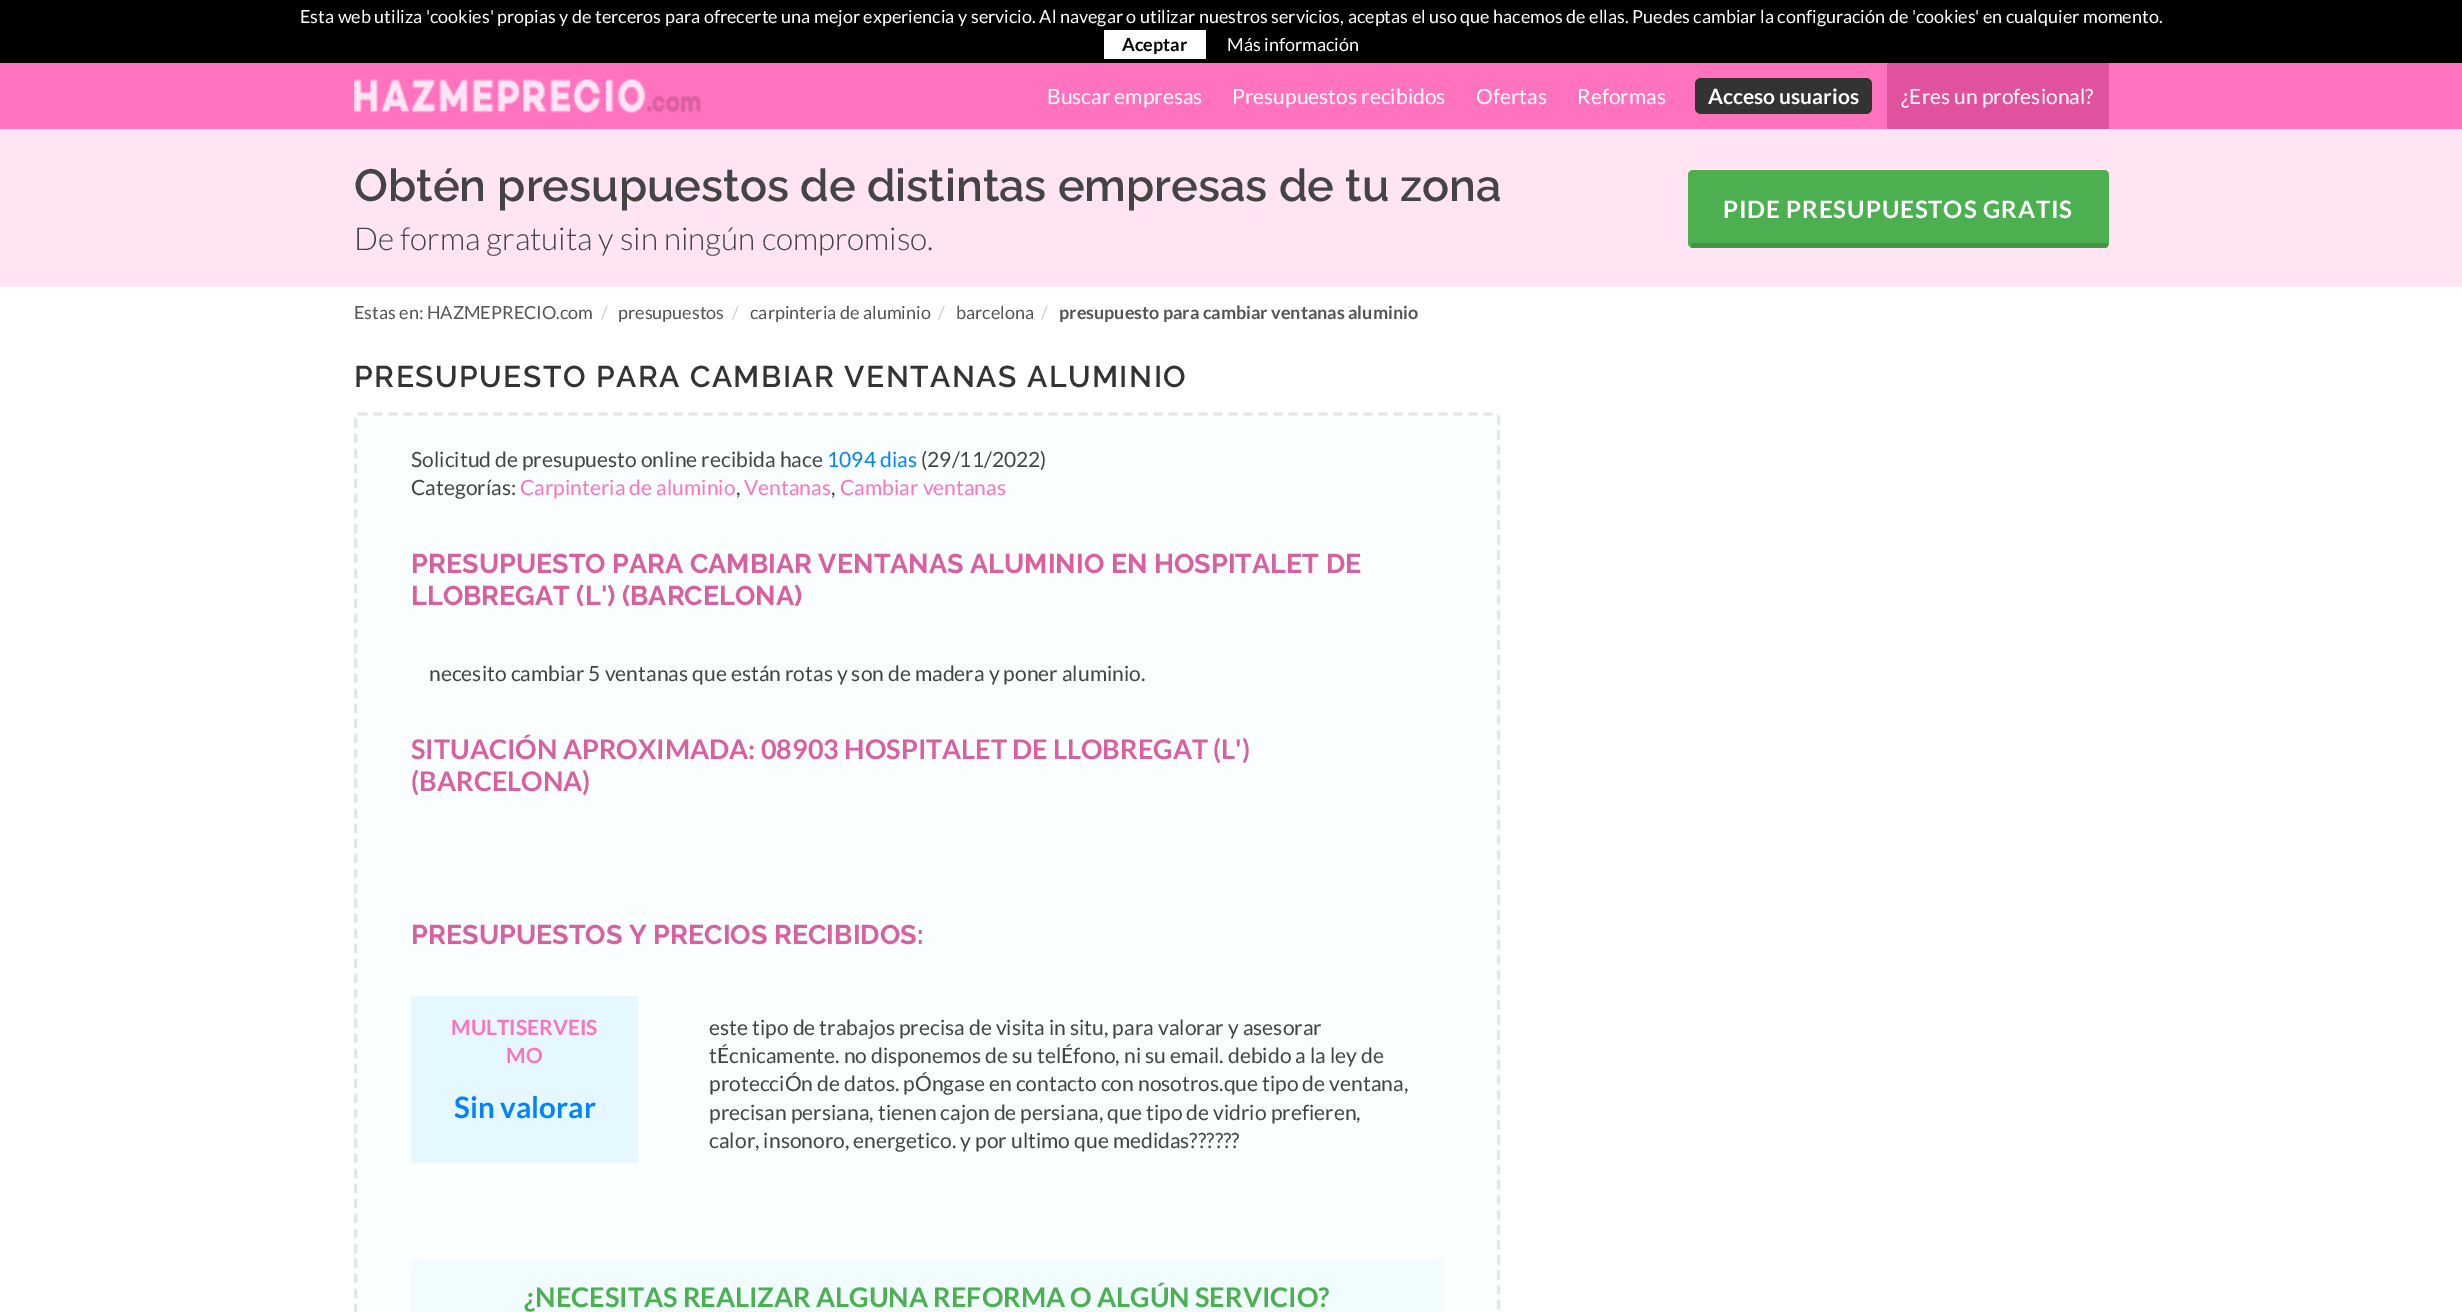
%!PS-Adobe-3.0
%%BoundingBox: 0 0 2462 1312
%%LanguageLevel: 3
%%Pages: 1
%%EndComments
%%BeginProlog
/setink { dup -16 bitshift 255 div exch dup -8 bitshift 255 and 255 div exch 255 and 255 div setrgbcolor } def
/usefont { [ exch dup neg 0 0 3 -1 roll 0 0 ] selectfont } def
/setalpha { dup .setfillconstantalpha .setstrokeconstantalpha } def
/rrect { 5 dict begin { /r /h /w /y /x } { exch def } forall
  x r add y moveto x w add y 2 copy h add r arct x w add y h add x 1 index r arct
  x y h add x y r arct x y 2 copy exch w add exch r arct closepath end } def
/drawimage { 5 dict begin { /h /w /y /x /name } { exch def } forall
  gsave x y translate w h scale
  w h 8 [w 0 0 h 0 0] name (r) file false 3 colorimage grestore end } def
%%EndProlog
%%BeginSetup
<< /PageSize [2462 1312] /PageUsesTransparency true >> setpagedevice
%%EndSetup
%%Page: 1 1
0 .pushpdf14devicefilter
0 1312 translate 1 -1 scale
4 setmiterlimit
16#FFFFFF setink
0 0 2462 1312 rectfill
16#000000 setink
0 0 2462 63 rectfill
/Lato-Regular 18 usefont
16#FFFFFF setink
300 23 moveto (Esta web utiliza 'cookies' propias y de terceros para ofrecerte una mejor experiencia y servicio. Al navegar o utilizar nuestros servicios, aceptas el uso que hacemos de ellas. Puedes cambiar la configuración de 'cookies' en cualquier momento.) show
1104 30 102 29 rectfill
/Lato-Bold 18 usefont
16#000000 setink
1122 51 moveto (Aceptar) show
/Lato-Regular 18 usefont
16#FFFFFF setink
1227 51 moveto (Más información) show
16#FF72BE setink
0 63 2462 66 rectfill
(img1.raw) 354 79 347 34 drawimage
/Lato-Regular 21 usefont
16#FFFFFF setink
[
    [(Buscar empresas) 1047 104]
    [(Presupuestos recibidos) 1232 104]
    [(Ofertas) 1476 104]
    [(Reformas) 1577 104]
] { aload pop moveto show } forall
16#333333 setink
1695 78 177 36 6 rrect fill
/Lato-Bold 21 usefont
16#FFFFFF setink
1708 104 moveto (Acceso usuarios) show
16#E0519E setink
1887 63 222 66 rectfill
/Lato-Regular 21 usefont
16#FFFFFF setink
1901 104 moveto (¿Eres un profesional?) show
16#FFE5F3 setink
0 129 2462 158 rectfill
/Raleway-SemiBold 45 usefont
16#444444 setink
354 201 moveto (Obtén presupuestos de distintas empresas de tu zona) show
16#4CAF50 setink
1688 170 421 78 5 rrect fill
0.15 setalpha
16#000000 setink
1691 243 417 5 rectfill
/Lato-Bold 24 usefont
1 setalpha
16#FFFFFF setink
1723 218 moveto 0.9 0 (PIDE PRESUPUESTOS GRATIS) ashow
/Lato-Light 31.5 usefont
16#444444 setink
354 250 moveto (De forma gratuita y sin ningún compromiso.) show
/Lato-Regular 18 usefont
16#555555 setink
354 319 moveto (Estas en: HAZMEPRECIO.com) show
16#CCCCCC setink
601 319 moveto (/) show
16#555555 setink
618 319 moveto (presupuestos) show
16#CCCCCC setink
732 319 moveto (/) show
16#555555 setink
750 319 moveto (carpinteria de aluminio) show
16#CCCCCC setink
938 319 moveto (/) show
16#555555 setink
956 319 moveto (barcelona) show
16#CCCCCC setink
1041 319 moveto (/) show
/Lato-Bold 18 usefont
16#555555 setink
1059 319 moveto (presupuesto para cambiar ventanas aluminio) show
/Raleway-SemiBold 30 usefont
16#333333 setink
354 387 moveto 1.5 0 (PRESUPUESTO PARA CAMBIAR VENTANAS ALUMINIO) ashow
16#FAFEFF setink
354 413 1146 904 5 rrect fill
16#E5E5E5 setink
3 setlinewidth
[9 6] 0 setdash
358.5 414 moveto 1495.5 414 lineto 1497 414 1498.5 415.5 1498.5 417 curveto 1498.5 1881 lineto 1498.5 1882.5 1497 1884 1495.5 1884 curveto 358.5 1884 lineto 357 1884 355.5 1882.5 355.5 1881 curveto 355.5 417 lineto 355.5 415.5 357 414 358.5 414 curveto closepath stroke
/Lato-Regular 21 usefont
16#444444 setink
411 467 moveto (Solicitud de presupuesto online recibida hace) show
16#0182FF setink
827 467 moveto (1094 dias) show
16#444444 setink
921 467 moveto (\(29/11/2022\)) show
411 495 moveto (Categorías:) show
16#FF72BE setink
520 495 moveto (Carpinteria de aluminio) show
16#444444 setink
736 495 moveto (,) show
16#FF72BE setink
744 495 moveto (Ventanas) show
16#444444 setink
831 495 moveto (,) show
16#FF72BE setink
840 495 moveto (Cambiar ventanas) show
/Raleway-Bold 27 usefont
16#D860A1 setink
411 573 moveto (PRESUPUESTO PARA CAMBIAR VENTANAS ALUMINIO EN HOSPITALET DE) show
411 605 moveto (LLOBREGAT \(L'\) \(BARCELONA\)) show
/Lato-Regular 21 usefont
16#444444 setink
429 681 moveto (necesito cambiar 5 ventanas que están rotas y son de madera y poner aluminio.) show
/Lato-Bold 27 usefont
16#D860A1 setink
411 759 moveto (SITUACIÓN APROXIMADA: 08903 HOSPITALET DE LLOBREGAT \(L'\)) show
411 791 moveto (\(BARCELONA\)) show
/Raleway-Bold 27 usefont
411 944 moveto (PRESUPUESTOS Y PRECIOS RECIBIDOS:) show
16#E5F8FF setink
411 996 227 167 rectfill
/Lato-Bold 21 usefont
16#FF72BE setink
451 1035 moveto (MULTISERVEIS) show
506 1063 moveto (MO) show
/Lato-Bold 29.5 usefont
16#0182FF setink
454 1118 moveto (Sin valorar) show
/Lato-Regular 21 usefont
16#444444 setink
[
    [(este tipo de trabajos precisa de visita in situ, para valorar y asesorar) 709 1035]
    [(tÉcnicamente. no disponemos de su telÉfono, ni su email. debido a la ley de) 709 1063]
    [(protecciÓn de datos. pÓngase en contacto con nosotros.que tipo de ventana,) 709 1091]
    [(precisan persiana, tienen cajon de persiana, que tipo de vidrio prefieren,) 709 1120]
    [(calor, insonoro, energetico. y por ultimo que medidas??????) 709 1148]
] { aload pop moveto show } forall
16#F0FCFF setink
411 1260 1032 52 rectfill
/Lato-Bold 27 usefont
16#4CAF50 setink
524 1307 moveto (¿NECESITAS REALIZAR ALGUNA REFORMA O ALGÚN SERVICIO?) show
.poppdf14devicefilter showpage
%%EOF
